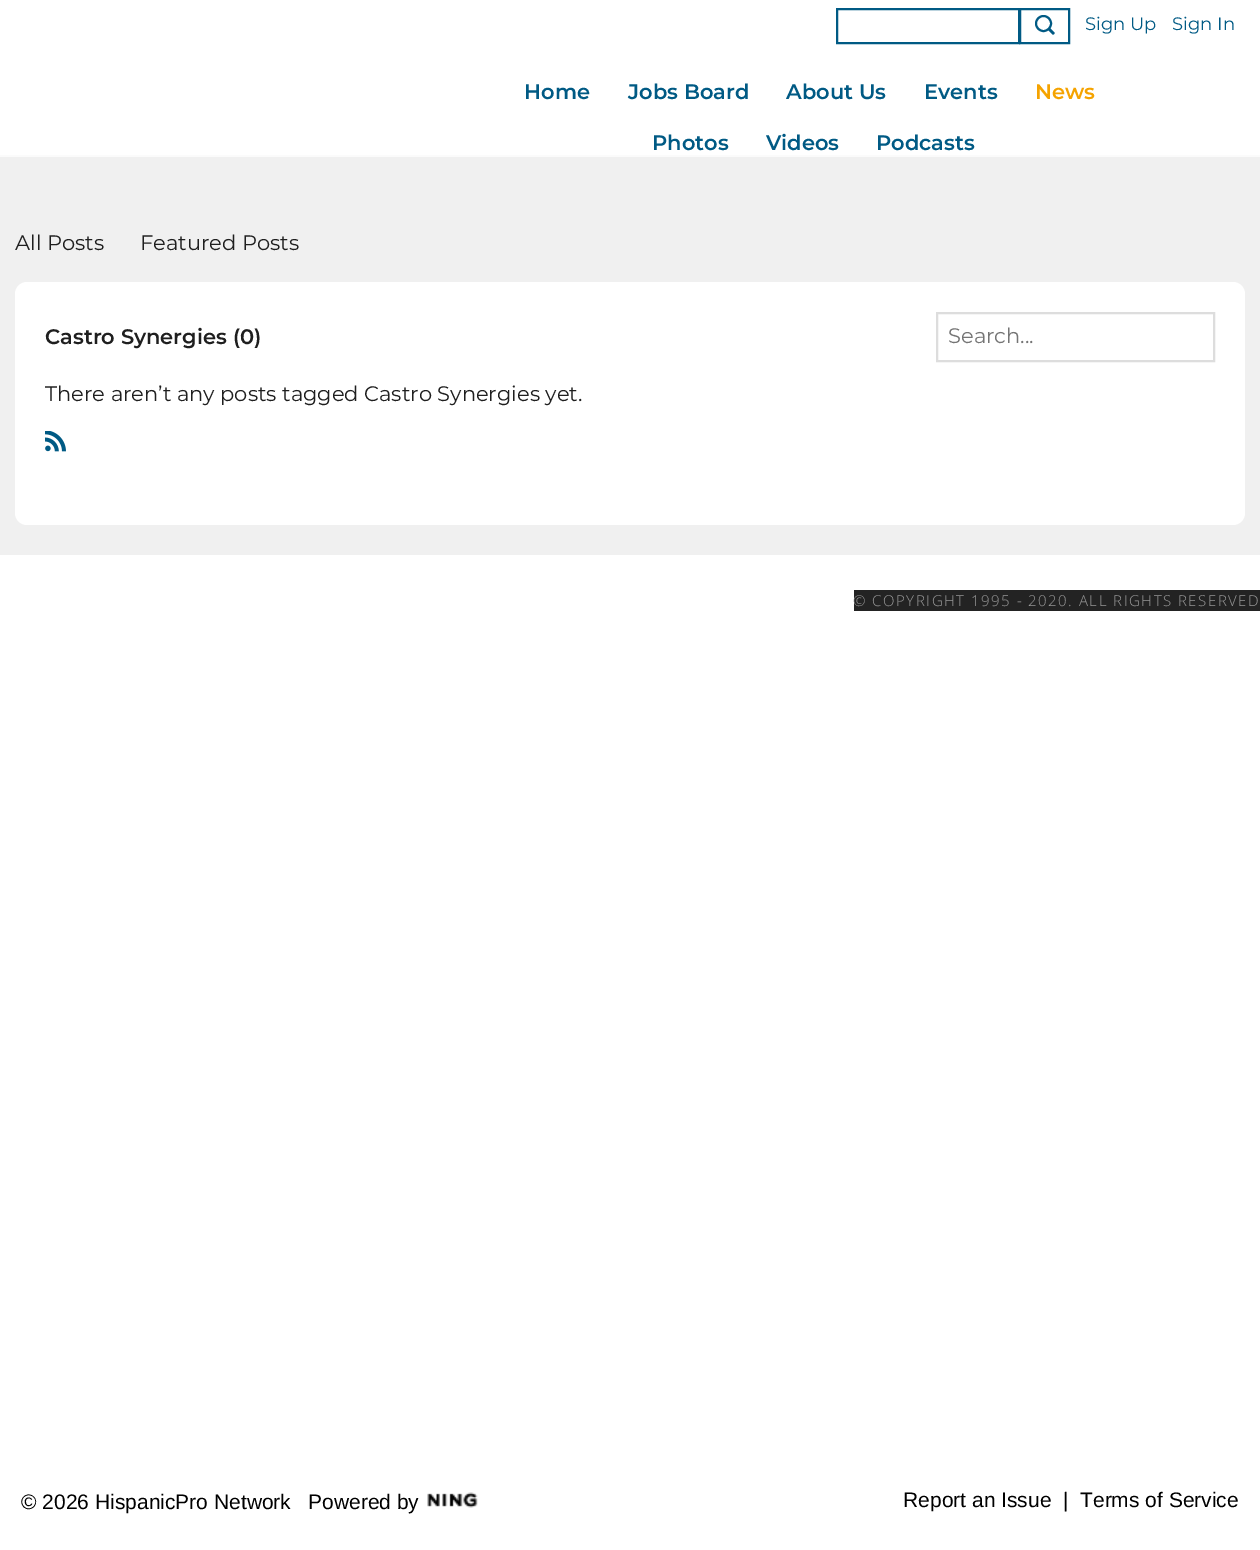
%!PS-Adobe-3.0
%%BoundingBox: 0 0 1260 1550
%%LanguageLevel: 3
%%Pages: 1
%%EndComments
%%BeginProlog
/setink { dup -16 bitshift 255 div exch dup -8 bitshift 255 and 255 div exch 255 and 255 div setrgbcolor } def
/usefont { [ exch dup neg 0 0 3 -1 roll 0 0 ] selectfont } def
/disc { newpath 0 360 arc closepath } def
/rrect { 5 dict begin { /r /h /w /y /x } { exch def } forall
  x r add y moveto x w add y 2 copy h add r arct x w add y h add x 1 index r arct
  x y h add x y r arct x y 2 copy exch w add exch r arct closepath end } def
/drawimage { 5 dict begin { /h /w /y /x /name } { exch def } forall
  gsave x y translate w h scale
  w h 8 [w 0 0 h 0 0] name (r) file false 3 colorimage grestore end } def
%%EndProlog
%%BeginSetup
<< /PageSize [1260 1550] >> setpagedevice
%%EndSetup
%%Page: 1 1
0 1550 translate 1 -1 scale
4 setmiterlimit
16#FFFFFF setink
0 0 1260 1550 rectfill
16#005A84 setink
2 setlinewidth
837 9 182 34 rectstroke
1020 9 49 34 rectstroke
1043.5 23.5 7.5 disc stroke
1051 29 moveto 1054.5 32.5 lineto 1055 33.5 1053.5 35 1052.5 34.5 curveto 1048.5 30.5 lineto 1048 29 1050 27.5 1051 29 curveto closepath fill
/Montserrat-Thin 18 usefont
1085 30 moveto (Sign Up) show
1172 30 moveto (Sign In) show
/Montserrat-SemiBold 21 usefont
[
    [(Home) 524 99]
    [(Jobs Board) 628 99]
    [(About Us) 786 99]
    [(Events) 924 99]
] { aload pop moveto show } forall
16#F5A300 setink
1035 99 moveto (News) show
16#005A84 setink
[
    [(Photos) 652 150]
    [(Videos) 766 150]
    [(Podcasts) 876 150]
] { aload pop moveto show } forall
16#F0F0F0 setink
0 157 1260 398 rectfill
16#FBFBFB setink
0 155 1260 2 rectfill
/Montserrat-Thin 21 usefont
16#1F1F1F setink
15 250 moveto (All Posts) show
140 250 moveto (Featured Posts) show
16#FFFFFF setink
15 282 1230 243 12 rrect fill
/Montserrat-SemiBold 21 usefont
16#1F1F1F setink
45 344 moveto (Castro Synergies \(0\)) show
16#DDDDDD setink
937 313 277 48 rectstroke
/Montserrat-Thin 21 usefont
16#757575 setink
948 343 moveto (Search...) show
16#1F1F1F setink
45 401 moveto (There aren’t any posts tagged Castro Synergies yet.) show
(img1.raw) 45 431 21 21 drawimage
16#232323 setink
854 590 406 21 rectfill
/OpenSans-Light 15 usefont
16#999999 setink
853 606 moveto 1.5 0 (© COPYRIGHT 1995 - 2020. ALL RIGHTS RESERVED) ashow
/LiberationSans-Regular 21 usefont
16#000000 setink
21 1509 moveto (© 2026 HispanicPro Network) show
308 1509 moveto (Powered by) show
(img2.raw) 427 1492 51 16 drawimage
[
    [(Report an Issue) 903 1507]
    [(|) 1063 1507]
    [(Terms of Service) 1080 1507]
] { aload pop moveto show } forall
showpage
%%EOF
